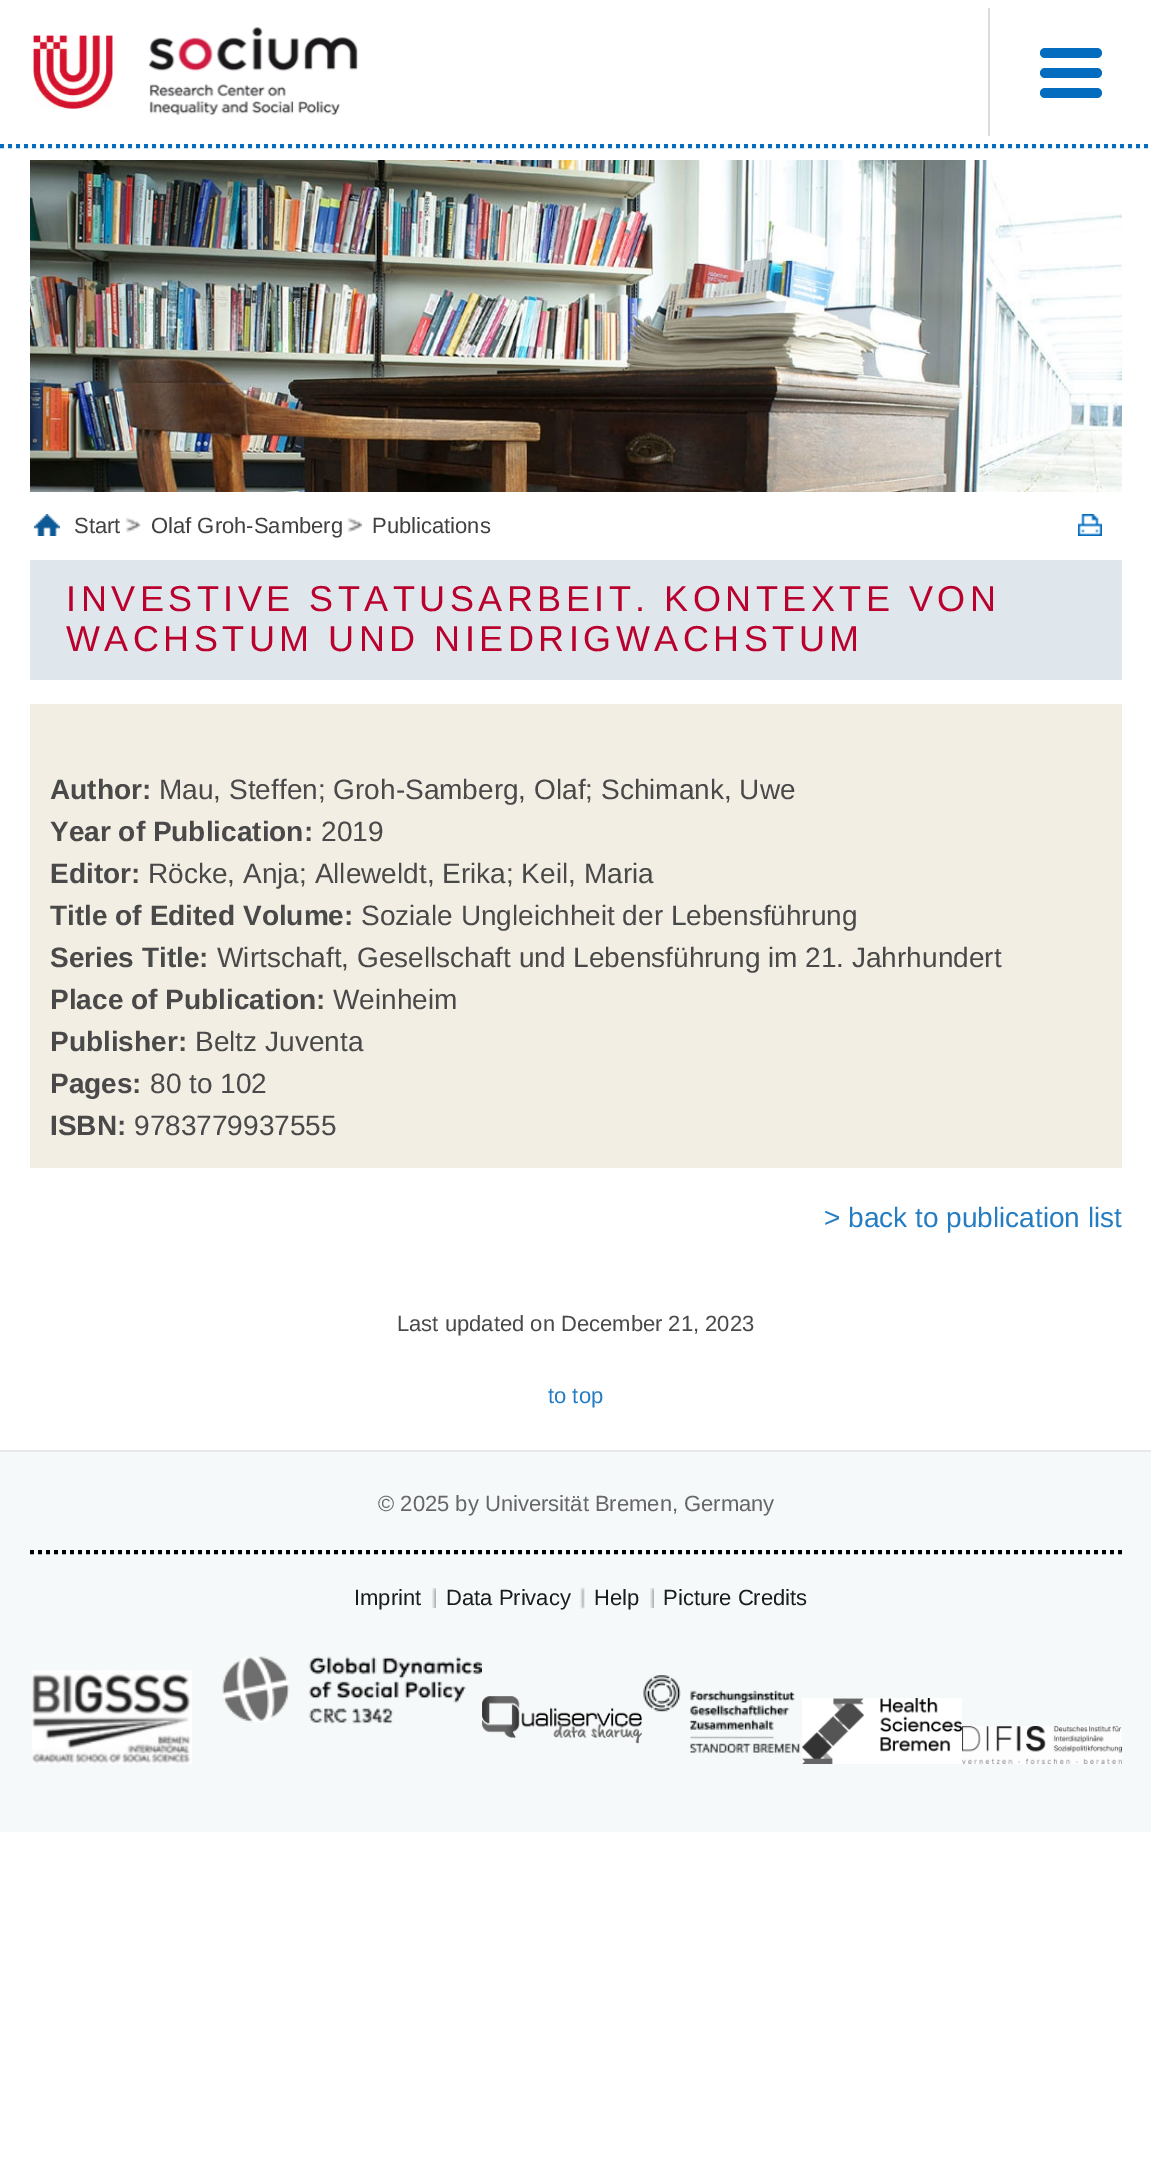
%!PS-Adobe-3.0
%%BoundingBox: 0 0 1151 2181
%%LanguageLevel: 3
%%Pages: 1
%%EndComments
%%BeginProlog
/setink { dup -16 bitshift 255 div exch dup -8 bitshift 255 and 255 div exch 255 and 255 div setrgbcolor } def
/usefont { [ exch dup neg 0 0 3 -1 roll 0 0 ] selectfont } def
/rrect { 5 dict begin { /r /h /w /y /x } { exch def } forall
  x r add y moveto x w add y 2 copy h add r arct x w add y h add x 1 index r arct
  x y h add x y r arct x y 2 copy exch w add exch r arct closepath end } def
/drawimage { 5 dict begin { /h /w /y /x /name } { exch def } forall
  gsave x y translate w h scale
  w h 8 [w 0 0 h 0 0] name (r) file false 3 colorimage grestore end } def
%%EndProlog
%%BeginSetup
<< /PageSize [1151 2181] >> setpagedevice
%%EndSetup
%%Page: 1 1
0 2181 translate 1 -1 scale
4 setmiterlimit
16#FFFFFF setink
0 0 1151 2181 rectfill
16#046CBE setink
4 setlinewidth
[4 4] 0 setdash
0 146 moveto 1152 146 lineto stroke
(img1.raw) 33 35 80 74 drawimage
(img2.raw) 148 27 210 89 drawimage
16#DCDCDC setink
988 8 2 128 rectfill
16#046CBE setink
1040 68 62 10 5 rrect fill
1040 48 62 10 5 rrect fill
1040 88 62 10 5 rrect fill
(img3.raw) 30 160 1092 332 drawimage
(img4.raw) 34 514 26 22 drawimage
/LiberationSans-Regular 22 usefont
16#414141 setink
74 533 moveto (Start) show
(img5.raw) 126 517 15 16 drawimage
151 533 moveto (Olaf Groh-Samberg) show
(img6.raw) 348 518 14 14 drawimage
372 533 moveto (Publications) show
(img7.raw) 1078 514 24 22 drawimage
16#DFE7EC setink
30 560 1092 120 rectfill
/LiberationSans-Regular 36 usefont
16#BA002C setink
66 611 moveto 4.5 0 (INVESTIVE STATUSARBEIT. KONTEXTE VON) ashow
66 651 moveto 4.5 0 (WACHSTUM UND NIEDRIGWACHSTUM) ashow
16#F3EEE4 setink
30 704 1092 464 rectfill
/LiberationSans-Bold 28 usefont
16#494949 setink
50 799 moveto (Author:) show
/LiberationSans-Regular 28 usefont
159 799 moveto (Mau, Steffen; Groh-Samberg, Olaf; Schimank, Uwe) show
/LiberationSans-Bold 28 usefont
50 841 moveto (Year of Publication:) show
/LiberationSans-Regular 28 usefont
321 841 moveto (2019) show
/LiberationSans-Bold 28 usefont
50 883 moveto (Editor:) show
/LiberationSans-Regular 28 usefont
148 883 moveto (Röcke, Anja; Alleweldt, Erika; Keil, Maria) show
/LiberationSans-Bold 28 usefont
50 925 moveto (Title of Edited Volume:) show
/LiberationSans-Regular 28 usefont
361 925 moveto (Soziale Ungleichheit der Lebensführung) show
/LiberationSans-Bold 28 usefont
50 967 moveto (Series Title:) show
/LiberationSans-Regular 28 usefont
217 967 moveto (Wirtschaft, Gesellschaft und Lebensführung im 21. Jahrhundert) show
/LiberationSans-Bold 28 usefont
50 1009 moveto (Place of Publication:) show
/LiberationSans-Regular 28 usefont
333 1009 moveto (Weinheim) show
/LiberationSans-Bold 28 usefont
50 1051 moveto (Publisher:) show
/LiberationSans-Regular 28 usefont
195 1051 moveto (Beltz Juventa) show
/LiberationSans-Bold 28 usefont
50 1093 moveto (Pages:) show
/LiberationSans-Regular 28 usefont
150 1093 moveto (80 to 102) show
/LiberationSans-Bold 28 usefont
50 1135 moveto (ISBN:) show
/LiberationSans-Regular 28 usefont
134 1135 moveto (9783779937555) show
16#247DC3 setink
824 1227 moveto (> back to publication list) show
/LiberationSans-Regular 22 usefont
16#494949 setink
397 1331 moveto (Last updated on December 21, 2023) show
16#247DC3 setink
548 1403 moveto (to top) show
16#F5F9FA setink
0 1452 1151 380 rectfill
16#E8E8E8 setink
0 1450 1151 2 rectfill
16#000000 setink
30 1552 moveto 1122 1552 lineto stroke
16#666666 setink
378 1511 moveto (© 2025 by Universität Bremen, Germany) show
(img8.raw) 432 1588 4 20 drawimage
16#1B1C1C setink
354 1605 moveto (Imprint) show
(img9.raw) 580 1587 5 22 drawimage
446 1605 moveto (Data Privacy) show
(img8.raw) 650 1588 4 20 drawimage
594 1605 moveto (Help) show
663 1605 moveto (Picture Credits) show
(img10.raw) 32 1670 160 94 drawimage
(img11.raw) 222 1656 260 68 drawimage
(img12.raw) 482 1696 160 48 drawimage
(img13.raw) 643 1675 157 78 drawimage
(img14.raw) 802 1698 160 66 drawimage
(img15.raw) 962 1726 160 38 drawimage
showpage
%%EOF
